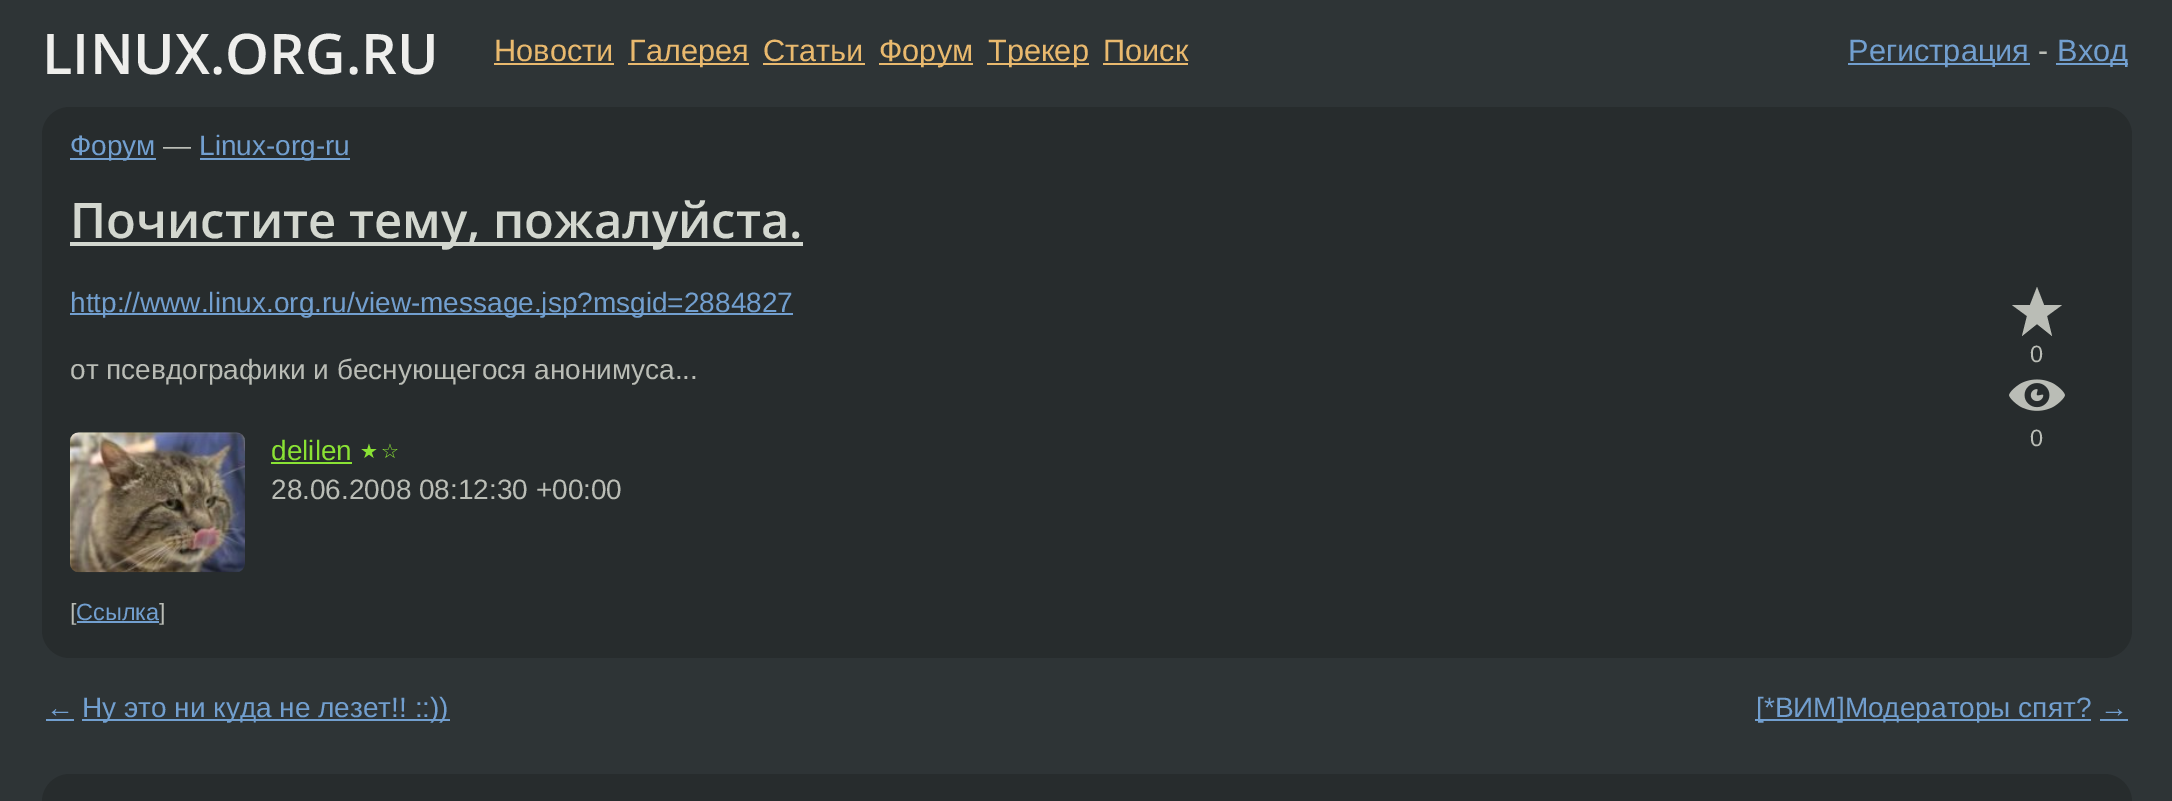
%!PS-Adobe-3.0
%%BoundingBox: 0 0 2172 801
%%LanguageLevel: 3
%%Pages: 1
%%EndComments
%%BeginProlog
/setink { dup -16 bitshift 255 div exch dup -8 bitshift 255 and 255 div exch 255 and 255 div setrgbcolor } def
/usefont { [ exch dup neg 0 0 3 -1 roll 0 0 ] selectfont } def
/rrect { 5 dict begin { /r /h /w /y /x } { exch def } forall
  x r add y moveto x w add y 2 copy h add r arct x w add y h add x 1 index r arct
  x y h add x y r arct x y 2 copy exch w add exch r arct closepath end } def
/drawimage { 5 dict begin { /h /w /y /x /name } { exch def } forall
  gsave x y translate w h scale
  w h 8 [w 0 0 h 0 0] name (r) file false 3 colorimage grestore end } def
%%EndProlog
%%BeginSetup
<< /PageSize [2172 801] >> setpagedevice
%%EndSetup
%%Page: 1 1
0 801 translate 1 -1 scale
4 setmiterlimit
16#2E3436 setink
0 0 2172 801 rectfill
/OpenSans-SemiBold 56 usefont
16#EEEEEC setink
42 74 moveto (LINUX.ORG.RU) show
/LiberationSans-Regular 30.75 usefont
16#E9B96E setink
494 61 moveto (Новости) show
494 63 120 2 rectfill
628 63 121 2 rectfill
629 61 moveto (Галерея) show
763 61 moveto (Статьи) show
763 63 102 2 rectfill
879 63 94 2 rectfill
879 61 moveto (Форум) show
987 63 102 2 rectfill
988 61 moveto (Трекер) show
1103 61 moveto (Поиск) show
1103 63 85 2 rectfill
16#729FCF setink
1848 63 182 2 rectfill
1848 61 moveto (Регистрация) show
16#BABDB6 setink
2038 61 moveto (-) show
16#729FCF setink
2056 63 72 2 rectfill
2057 61 moveto (Вход) show
16#272C2D setink
42 107 2090 551 28 rrect fill
16#729FCF setink
70 158 86 2 rectfill
/LiberationSans-Regular 28 usefont
70 155 moveto (Форум) show
16#BABDB6 setink
163 155 moveto (—) show
16#729FCF setink
200 158 150 2 rectfill
199 155 moveto (Linux-org-ru) show
16#D3D7CF setink
70 242 733 4 rectfill
/OpenSans-SemiBold 49 usefont
70 238 moveto (Почистите тему, пожалуйста.) show
16#729FCF setink
70 313 723 2 rectfill
/LiberationSans-Regular 28 usefont
70 312 moveto (http://www.linux.org.ru/view-message.jsp?msgid=2884827) show
16#BABDB6 setink
70 379 moveto (от псевдографики и беснующегося анонимуса...) show
2037 287 moveto 2044 305 lineto 2062 305 lineto 2047 316 lineto 2052 336 lineto 2037 324 lineto 2022 336 lineto 2027 316 lineto 2012 305 lineto 2030 305 lineto closepath fill
/LiberationSans-Regular 23.5 usefont
2030 362 moveto (0) show
(img1.raw) 2009 379 56 32 drawimage
2030 446 moveto (0) show
(img2.raw) 70 432 175 141 drawimage
/LiberationSans-Regular 28 usefont
16#8AE234 setink
271 460 moveto (delilen) show
271 462 81 2 rectfill
/DejaVuSans-Regular 20 usefont
360 458 moveto 3 0 (★☆) ashow
/LiberationSans-Regular 28 usefont
16#BABDB6 setink
271 499 moveto (28.06.2008 08:12:30 +00:00) show
/LiberationSans-Regular 23.5 usefont
70 620 moveto ([) show
16#729FCF setink
77 621 82 2 rectfill
76 620 moveto (Ссылка) show
16#BABDB6 setink
159 620 moveto (]) show
/LiberationSans-Regular 28 usefont
16#729FCF setink
46 717 moveto (←) show
46 719 28 2 rectfill
82 719 368 2 rectfill
82 717 moveto (Ну это ни куда не лезет!! ::\)\)) show
1755 719 336 2 rectfill
1756 717 moveto ([*ВИМ]Модераторы спят?) show
2100 717 moveto (→) show
2100 719 28 2 rectfill
16#272C2D setink
42 774 2090 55 28 rrect fill
showpage
%%EOF
